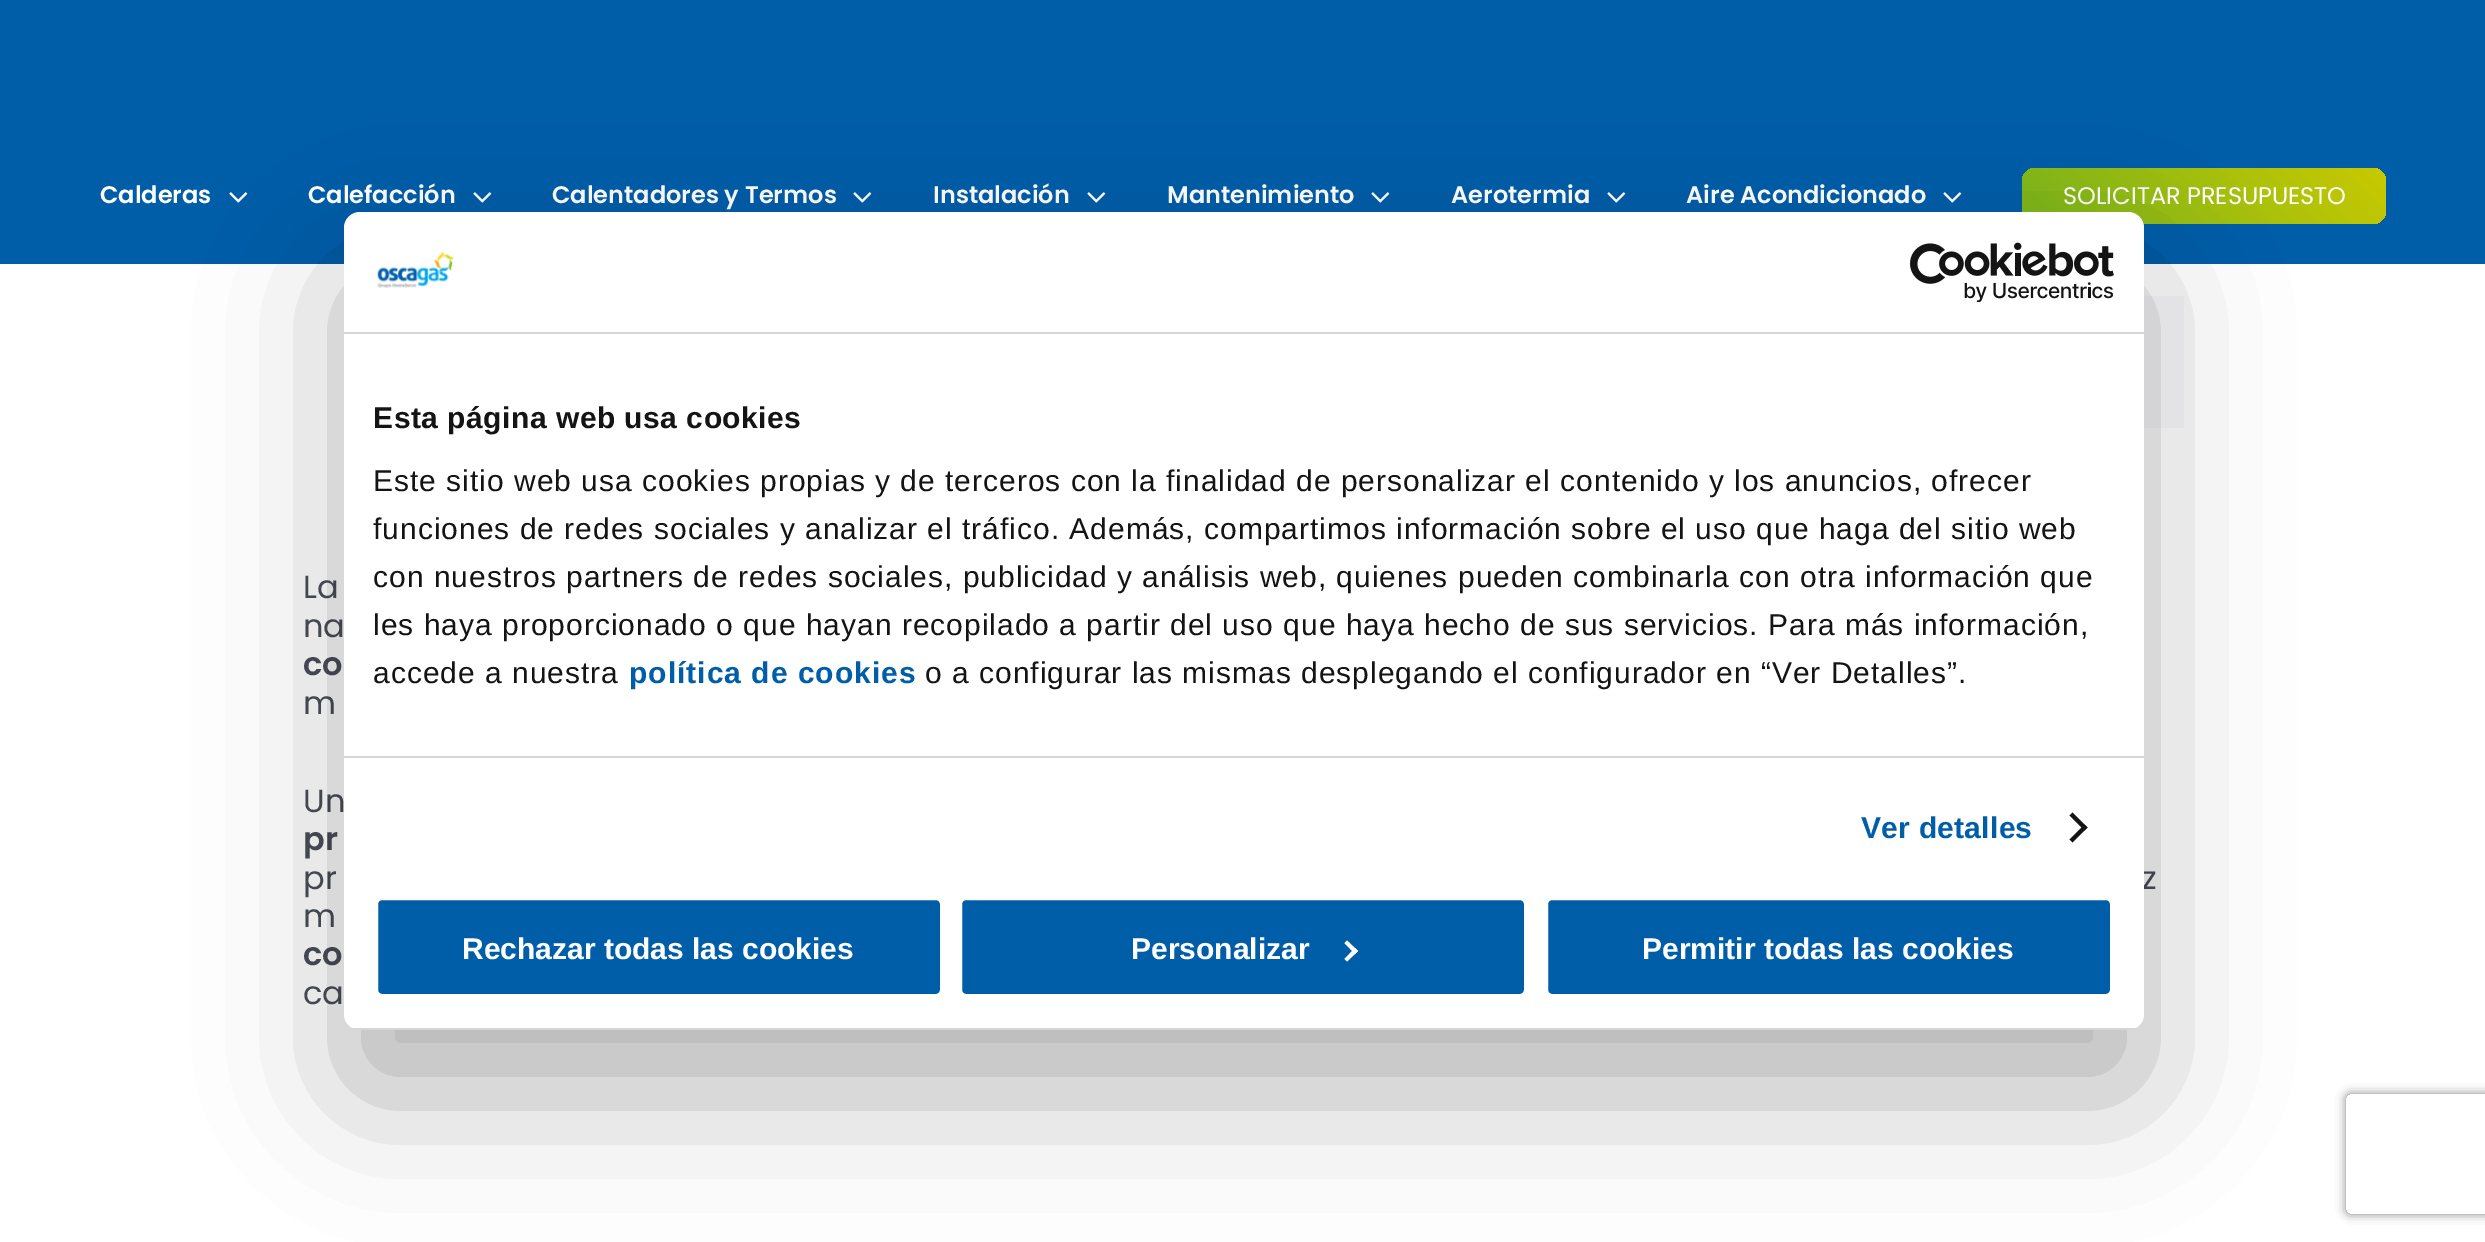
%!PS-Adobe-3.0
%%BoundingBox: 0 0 2485 1242
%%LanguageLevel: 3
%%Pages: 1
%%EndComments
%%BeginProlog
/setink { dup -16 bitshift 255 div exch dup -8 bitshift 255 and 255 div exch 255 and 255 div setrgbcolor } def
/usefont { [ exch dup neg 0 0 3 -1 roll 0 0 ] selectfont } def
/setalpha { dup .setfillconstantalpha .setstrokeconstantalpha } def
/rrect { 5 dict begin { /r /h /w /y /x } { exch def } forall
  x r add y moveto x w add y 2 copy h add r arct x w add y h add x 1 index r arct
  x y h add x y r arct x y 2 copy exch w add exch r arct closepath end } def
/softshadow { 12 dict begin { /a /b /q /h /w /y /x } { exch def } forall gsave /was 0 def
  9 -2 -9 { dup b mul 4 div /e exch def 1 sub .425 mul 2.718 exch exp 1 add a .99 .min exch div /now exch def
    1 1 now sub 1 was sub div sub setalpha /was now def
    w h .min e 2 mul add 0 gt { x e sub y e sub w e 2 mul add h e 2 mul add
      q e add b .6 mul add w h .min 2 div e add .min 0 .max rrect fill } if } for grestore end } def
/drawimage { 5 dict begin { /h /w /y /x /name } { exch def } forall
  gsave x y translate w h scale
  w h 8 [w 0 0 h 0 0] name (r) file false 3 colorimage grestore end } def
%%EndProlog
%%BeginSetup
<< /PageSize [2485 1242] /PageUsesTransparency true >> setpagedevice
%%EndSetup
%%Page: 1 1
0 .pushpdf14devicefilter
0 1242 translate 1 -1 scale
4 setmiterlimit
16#FFFFFF setink
0 0 2485 1242 rectfill
16#005DA8 setink
0 0 2485 264 rectfill
/Poppins-SemiBold 24 usefont
16#FFFFFF setink
100 203 moveto (Calderas) show
(img1.raw) 229 192 19 11 drawimage
308 203 moveto (Calefacción) show
(img1.raw) 473 192 19 11 drawimage
552 203 moveto (Calentadores y Termos) show
(img1.raw) 853 192 19 11 drawimage
933 203 moveto (Instalación) show
(img1.raw) 1087 192 19 11 drawimage
1167 203 moveto (Mantenimiento) show
(img1.raw) 1371 192 19 11 drawimage
1451 203 moveto (Aerotermia) show
(img1.raw) 1607 192 19 11 drawimage
1686 203 moveto (Aire Acondicionado) show
(img1.raw) 1943 192 19 11 drawimage
gsave 2022 168 364 56 14 rrect clip newpath
<< /ShadingType 2 /ColorSpace /DeviceRGB /Coords [2099 301 2309 91] /Extend [true true] /Function << /FunctionType 2 /Domain [0 1] /C0 [0.478 0.71 0.114] /C1 [0.788 0.788 0] /N 1 >> >> shfill grestore
/Poppins-Regular 24 usefont
2063 204 moveto (SOLICITAR PRESUPUESTO) show
16#F9F9FB setink
2144 296 40 132 rectfill
/Poppins-Regular 32 usefont
16#4A4E57 setink
303 598 moveto (La) show
303 637 moveto (na) show
/Poppins-SemiBold 32 usefont
303 675 moveto (co) show
/Poppins-Regular 32 usefont
303 714 moveto (m) show
303 812 moveto (Un) show
/Poppins-SemiBold 32 usefont
303 850 moveto (pr) show
/Poppins-Regular 32 usefont
[
    [(pr) 303 889]
    [(z) 2142 889]
    [(m) 303 927]
] { aload pop moveto show } forall
/Poppins-SemiBold 32 usefont
303 965 moveto (co) show
/Poppins-Regular 32 usefont
303 1004 moveto (ca) show
16#000000 setink
344 276 1800 818 16 68 0.3 softshadow
16#FFFFFF setink
344 212 1800 818 16 rrect fill
16#D6D6D6 setink
344 332 1800 2 rectfill
(img2.raw) 377 251 77 38 drawimage
(img3.raw) 1910 242 204 60 drawimage
344 756 1800 2 rectfill
/LiberationSans-Bold 30 usefont
16#141414 setink
373 428 moveto 0.5 0 (Esta página web usa cookies) ashow
/LiberationSans-Regular 30 usefont
373 491 moveto 1 0 (Este sitio web usa cookies propias y de terceros con la finalidad de personalizar el contenido y los anuncios, ofrecer) ashow
373 539 moveto 1 0 (funciones de redes sociales y analizar el tráfico. Además, compartimos información sobre el uso que haga del sitio web) ashow
373 587 moveto 1 0 (con nuestros partners de redes sociales, publicidad y análisis web, quienes pueden combinarla con otra información que) ashow
373 635 moveto 1 0 (les haya proporcionado o que hayan recopilado a partir del uso que haya hecho de sus servicios. Para más información,) ashow
373 683 moveto 1 0 (accede a nuestra) ashow
/LiberationSans-Bold 30 usefont
16#005DA7 setink
629 683 moveto 1 0 (política de cookies) ashow
/LiberationSans-Regular 30 usefont
16#141414 setink
925 683 moveto 1 0 (o a configurar las mismas desplegando el configurador en “Ver Detalles”.) ashow
/LiberationSans-Bold 30 usefont
16#005DA7 setink
1861 838 moveto 0.25 0 (Ver detalles) ashow
16#141414 setink
2072.5 812.5 moveto 2087.5 827.5 lineto 2084.5 830.5 lineto 2069.5 815.5 lineto closepath fill
2084.5 824.5 moveto 2087.5 827.5 lineto 2072.5 842.5 lineto 2069.5 839.5 lineto closepath fill
gsave
344 212 1800 818 16 rrect clip newpath
16#D6D6D6 setink
344 1028 1800 2 rectfill
grestore
16#005DA7 setink
376 898 566 98 6 rrect gsave fill grestore
16#FFFFFF setink
4 setlinewidth
stroke
462 959 moveto (Rechazar todas las cookies) show
16#005DA7 setink
960 898 566 98 6 rrect gsave fill grestore
16#FFFFFF setink
stroke
1131 959 moveto (Personalizar) show
1347 940.5 moveto 1358 951 lineto 1355 954 lineto 1344.5 943 lineto closepath fill
1355 948 moveto 1358 951 lineto 1347 961.5 lineto 1344.5 959 lineto closepath fill
16#005DA7 setink
1546 898 566 98 6 rrect gsave fill grestore
16#FFFFFF setink
stroke
1642 959 moveto (Permitir todas las cookies) show
gsave
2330 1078 moveto 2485 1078 lineto 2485 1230 lineto 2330 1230 lineto closepath 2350 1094 moveto 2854 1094 lineto 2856 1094 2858 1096 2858 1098 curveto 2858 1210 lineto 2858 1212 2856 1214 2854 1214 curveto 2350 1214 lineto 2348 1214 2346 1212 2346 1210 curveto 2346 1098 lineto 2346 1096 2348 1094 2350 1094 curveto closepath eoclip newpath
16#808080 setink
2346 1094 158 120 4 5 1 softshadow
grestore
.poppdf14devicefilter showpage
%%EOF
